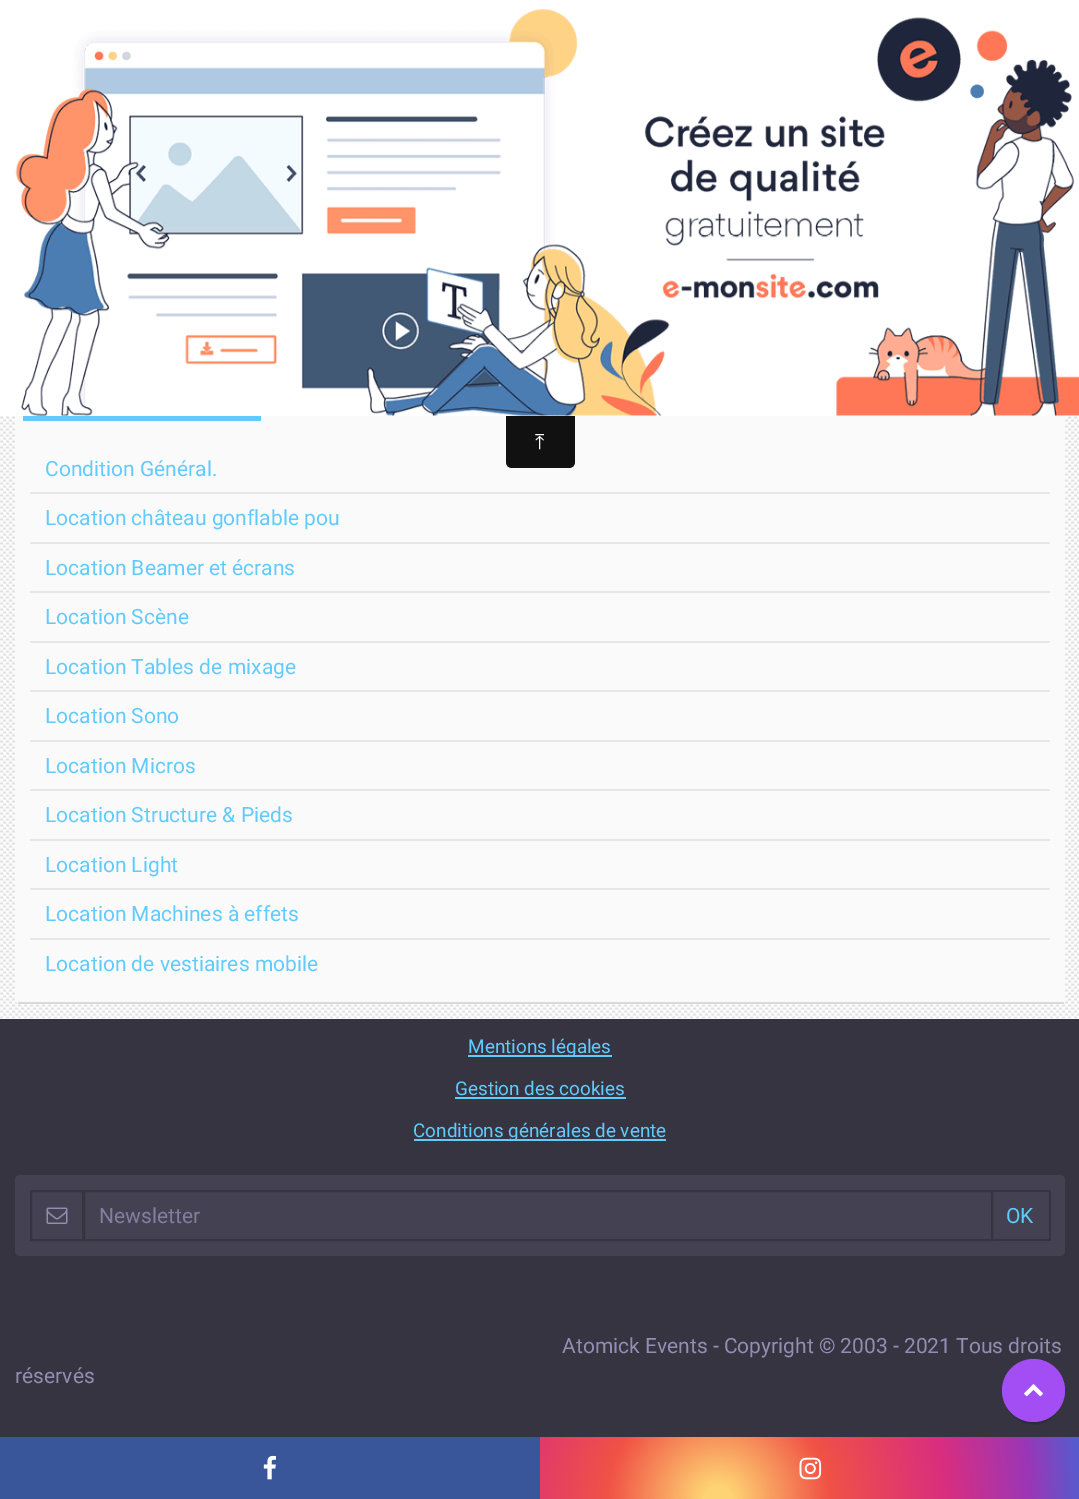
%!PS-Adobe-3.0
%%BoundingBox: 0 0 1079 1499
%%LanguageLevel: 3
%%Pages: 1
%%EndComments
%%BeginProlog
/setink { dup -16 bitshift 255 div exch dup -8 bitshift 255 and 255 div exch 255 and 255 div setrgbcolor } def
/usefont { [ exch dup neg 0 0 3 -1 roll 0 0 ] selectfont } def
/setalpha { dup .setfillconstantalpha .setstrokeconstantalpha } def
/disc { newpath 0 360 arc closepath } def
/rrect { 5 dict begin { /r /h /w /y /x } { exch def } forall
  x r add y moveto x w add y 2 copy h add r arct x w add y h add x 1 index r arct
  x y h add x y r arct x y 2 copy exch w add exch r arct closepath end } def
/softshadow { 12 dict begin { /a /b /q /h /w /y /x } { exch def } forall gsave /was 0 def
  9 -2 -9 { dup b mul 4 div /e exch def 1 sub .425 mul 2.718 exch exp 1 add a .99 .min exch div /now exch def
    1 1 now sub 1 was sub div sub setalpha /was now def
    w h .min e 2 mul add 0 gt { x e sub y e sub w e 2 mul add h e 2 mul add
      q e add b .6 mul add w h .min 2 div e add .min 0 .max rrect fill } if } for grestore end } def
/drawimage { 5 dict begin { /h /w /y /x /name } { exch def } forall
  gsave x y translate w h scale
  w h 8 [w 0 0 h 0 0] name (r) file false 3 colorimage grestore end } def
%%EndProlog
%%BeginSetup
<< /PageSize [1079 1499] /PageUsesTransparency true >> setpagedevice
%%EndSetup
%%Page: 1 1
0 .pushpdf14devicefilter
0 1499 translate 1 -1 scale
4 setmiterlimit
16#FFFFFF setink
0 0 1079 1499 rectfill
(img2.raw) 0 416 1079 603 drawimage
16#FAFAFA setink
15 369 1050 635 5 rrect fill
16#FFFFFF setink
15 369 1050 47 rectfill
(img1.raw) 15 9 1064 407 drawimage
16#111111 setink
506 416 moveto 575 416 lineto 575 462 lineto 575 465.5 572.5 468 569 468 curveto 512 468 lineto 508.5 468 506 465.5 506 462 curveto closepath fill
/FreeSerif-Regular 21 usefont
16#FFFFFF setink
535 449 moveto (⤒) show
[
    [18 1002 1046 2 16#D9D9D9]
    [23 416 238 5 16#60CBFC]
    [30 492 1020 2 16#E8E5E5]
] { aload pop setink rectfill } forall
/Roboto-Regular 21 usefont
16#60CBFC setink
45 476 moveto (Condition Général.) show
16#E8E5E5 setink
30 542 1020 2 rectfill
16#60CBFC setink
45 525 moveto (Location château gonflable pou) show
16#E8E5E5 setink
30 591 1020 2 rectfill
16#60CBFC setink
45 575 moveto (Location Beamer et écrans) show
16#E8E5E5 setink
30 641 1020 2 rectfill
16#60CBFC setink
45 624 moveto (Location Scène) show
16#E8E5E5 setink
30 690 1020 2 rectfill
16#60CBFC setink
45 674 moveto (Location Tables de mixage) show
16#E8E5E5 setink
30 740 1020 2 rectfill
16#60CBFC setink
45 723 moveto (Location Sono) show
16#E8E5E5 setink
30 789 1020 2 rectfill
16#60CBFC setink
45 773 moveto (Location Micros) show
16#E8E5E5 setink
30 839 1020 2 rectfill
16#60CBFC setink
45 822 moveto (Location Structure & Pieds) show
16#E8E5E5 setink
30 888 1020 2 rectfill
16#60CBFC setink
45 872 moveto (Location Light) show
16#E8E5E5 setink
30 938 1020 2 rectfill
16#60CBFC setink
45 921 moveto (Location Machines à effets) show
45 971 moveto (Location de vestiaires mobile) show
16#363441 setink
0 1019 1079 418 rectfill
16#60CBFC setink
468 1055 144 2 rectfill
/Roboto-Regular 18.9 usefont
468 1053 moveto (Mentions légales) show
455 1095 moveto (Gestion des cookies) show
455 1097 171 2 rectfill
414 1139 252 2 rectfill
413 1137 moveto (Conditions générales de vente) show
16#444152 setink
15 1175 1050 81 5 rrect fill
16#363441 setink
2 setlinewidth
31 1191 52 49 rectstroke
(img3.raw) 46 1207 22 17 drawimage
84 1191 908 49 rectstroke
/Roboto-Regular 21 usefont
16#837E9F setink
99 1223 moveto (Newsletter) show
[
    [992 1190 58 2 16#363441]
    [1049 1190 2 51 16#363441]
    [992 1239 58 2 16#363441]
] { aload pop setink rectfill } forall
16#60CBFC setink
1006 1223 moveto (OK) show
16#938DB2 setink
562 1353 moveto (Atomick Events - Copyright © 2003 - 2021 Tous droits) show
15 1383 moveto (réservés) show
16#000000 setink
1005 1367 57 57 28.5 1 0.2 softshadow
16#A24EF4 setink
1033.5 1390.5 31.5 disc fill
(img4.raw) 1024 1384 19 13 drawimage
16#385699 setink
0 1437 540 62 rectfill
(img5.raw) 263 1455 13 25 drawimage
gsave 540 1437 moveto 1079 1437 lineto 1079 1499 lineto 540 1499 lineto closepath clip newpath 718 1500 translate 367 367 scale
<< /ShadingType 3 /ColorSpace /DeviceRGB /Coords [0 0 0 0 0 1] /Extend [true true] /Function << /FunctionType 3 /Domain [0 1] /Functions [<< /FunctionType 2 /Domain [0 1] /C0 [0.996 0.827 0.451] /C1 [0.996 0.827 0.451] /N 1 >> << /FunctionType 2 /Domain [0 1] /C0 [0.996 0.827 0.451] /C1 [0.945 0.322 0.271] /N 1 >> << /FunctionType 2 /Domain [0 1] /C0 [0.945 0.322 0.271] /C1 [0.851 0.18 0.498] /N 1 >> << /FunctionType 2 /Domain [0 1] /C0 [0.851 0.18 0.498] /C1 [0.608 0.212 0.718] /N 1 >> << /FunctionType 2 /Domain [0 1] /C0 [0.608 0.212 0.718] /C1 [0.318 0.369 0.812] /N 1 >>] /Bounds [0.04 0.3 0.62 0.85] /Encode [0 1 0 1 0 1 0 1 0 1] >> >> shfill grestore
(img6.raw) 799 1457 23 23 drawimage
.poppdf14devicefilter showpage
%%EOF
